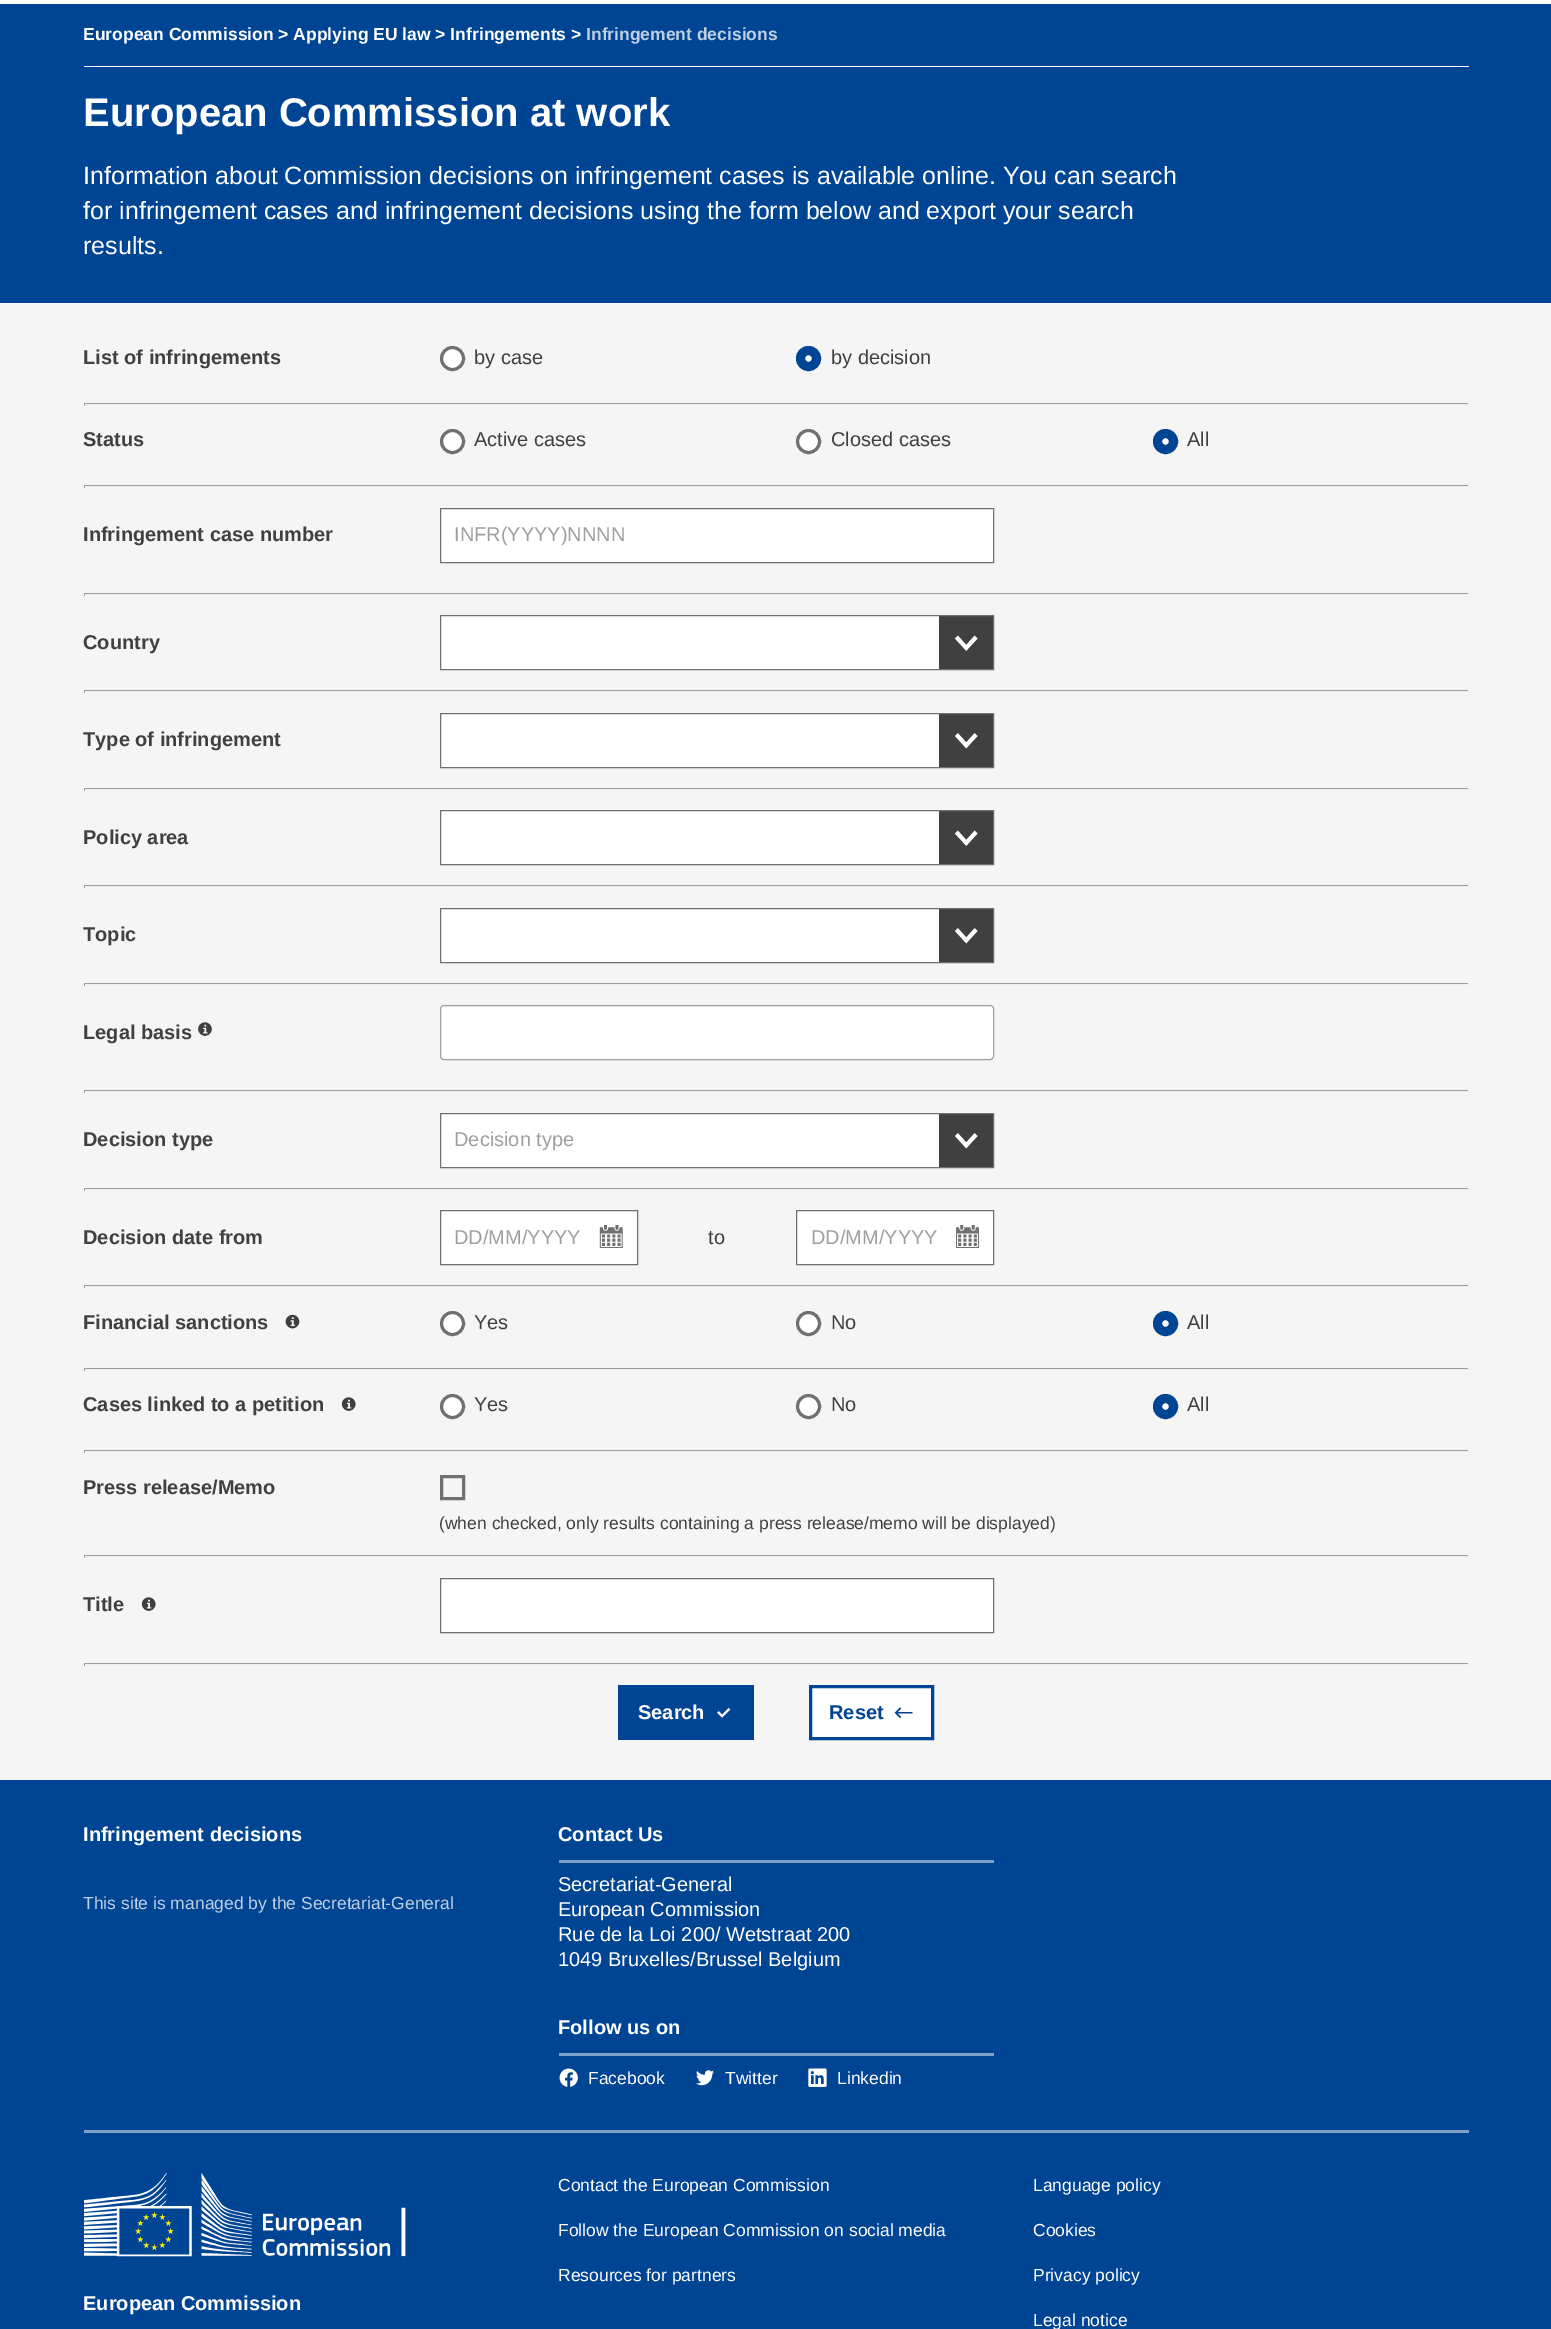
%!PS-Adobe-3.0
%%BoundingBox: 0 0 1551 2329
%%LanguageLevel: 3
%%Pages: 1
%%EndComments
%%BeginProlog
/setink { dup -16 bitshift 255 div exch dup -8 bitshift 255 and 255 div exch 255 and 255 div setrgbcolor } def
/usefont { [ exch dup neg 0 0 3 -1 roll 0 0 ] selectfont } def
/disc { newpath 0 360 arc closepath } def
/rrect { 5 dict begin { /r /h /w /y /x } { exch def } forall
  x r add y moveto x w add y 2 copy h add r arct x w add y h add x 1 index r arct
  x y h add x y r arct x y 2 copy exch w add exch r arct closepath end } def
/drawimage { 5 dict begin { /h /w /y /x /name } { exch def } forall
  gsave x y translate w h scale
  w h 8 [w 0 0 h 0 0] name (r) file false 3 colorimage grestore end } def
%%EndProlog
%%BeginSetup
<< /PageSize [1551 2329] >> setpagedevice
%%EndSetup
%%Page: 1 1
0 2329 translate 1 -1 scale
4 setmiterlimit
16#F5F5F5 setink
0 0 1551 2329 rectfill
[
    [0 0 1551 4 16#FFFFFF]
    [0 4 1551 299 16#004494]
    [84 66 1385 1 16#FFFFFF]
] { aload pop setink rectfill } forall
/LiberationSans-Bold 17.5 usefont
83 40 moveto (European Commission > Applying EU law > Infringements >) show
16#BFD0E4 setink
586 40 moveto (Infringement decisions) show
/LiberationSans-Bold 40 usefont
16#FFFFFF setink
83 126 moveto (European Commission at work) show
/LiberationSans-Regular 25 usefont
[
    [(Information about Commission decisions on infringement cases is available online. You can search) 83 184]
    [(for infringement cases and infringement decisions using the form below and export your search) 83 219]
    [(results.) 83 254]
] { aload pop moveto show } forall
/LiberationSans-Bold 20 usefont
16#404040 setink
83 364 moveto (List of infringements) show
16#FFFFFF setink
452.5 358.5 11 disc gsave fill grestore
16#707070 setink
3 setlinewidth
stroke
/LiberationSans-Regular 20 usefont
16#404040 setink
474 364 moveto (by case) show
16#FFFFFF setink
808.5 358.5 8 disc gsave fill grestore
16#004494 setink
9 setlinewidth
stroke
16#404040 setink
831 364 moveto (by decision) show
[
    [84 403 1385 1 16#9F9F9F]
    [1468 403 1 3 16#EEEEEE]
    [84 404 1385 1 16#EEEEEE]
    [84 403 1 3 16#9F9F9F]
] { aload pop setink rectfill } forall
/LiberationSans-Bold 20 usefont
16#404040 setink
83 446 moveto (Status) show
16#FFFFFF setink
452.5 441.5 11 disc gsave fill grestore
16#707070 setink
3 setlinewidth
stroke
/LiberationSans-Regular 20 usefont
16#404040 setink
474 446 moveto (Active cases) show
16#FFFFFF setink
808.5 441.5 11 disc gsave fill grestore
16#707070 setink
stroke
16#404040 setink
831 446 moveto (Closed cases) show
16#FFFFFF setink
1165.5 441.5 8 disc gsave fill grestore
16#004494 setink
9 setlinewidth
stroke
16#404040 setink
1187 446 moveto (All) show
[
    [84 485 1385 1 16#9F9F9F]
    [1468 485 1 3 16#EEEEEE]
    [84 486 1385 1 16#EEEEEE]
    [84 485 1 3 16#9F9F9F]
] { aload pop setink rectfill } forall
/LiberationSans-Bold 20 usefont
16#404040 setink
83 541 moveto (Infringement case number) show
16#FFFFFF setink
440.5 508.5 moveto 993.5 508.5 lineto 993.5 562.5 lineto 440.5 562.5 lineto closepath gsave fill grestore
16#707070 setink
1 setlinewidth
stroke
/LiberationSans-Regular 20 usefont
16#9F9F9F setink
454 541 moveto (INFR\(YYYY\)NNNN) show
[
    [84 593 1385 1 16#9F9F9F]
    [1468 593 1 3 16#EEEEEE]
    [84 594 1385 1 16#EEEEEE]
    [84 593 1 3 16#9F9F9F]
] { aload pop setink rectfill } forall
/LiberationSans-Bold 20 usefont
16#404040 setink
83 649 moveto (Country) show
16#FFFFFF setink
441 616 498 53 rectfill
16#404040 setink
939 616 54 53 rectfill
(img1.raw) 954 635 24 16 drawimage
16#707070 setink
440.5 615.5 553 54 rectstroke
[
    [84 690 1385 1 16#9F9F9F]
    [1468 690 1 3 16#EEEEEE]
    [84 691 1385 1 16#EEEEEE]
    [84 690 1 3 16#9F9F9F]
] { aload pop setink rectfill } forall
16#404040 setink
83 746 moveto (Type of infringement) show
16#FFFFFF setink
441 714 498 53 rectfill
16#404040 setink
939 714 54 53 rectfill
(img2.raw) 955 733 23 16 drawimage
16#707070 setink
440.5 713.5 553 54 rectstroke
[
    [84 788 1385 1 16#9F9F9F]
    [1468 788 1 3 16#EEEEEE]
    [84 789 1385 1 16#EEEEEE]
    [84 788 1 3 16#9F9F9F]
] { aload pop setink rectfill } forall
16#404040 setink
83 844 moveto (Policy area) show
16#FFFFFF setink
441 811 498 53 rectfill
16#404040 setink
939 811 54 53 rectfill
(img1.raw) 954 830 24 16 drawimage
16#707070 setink
440.5 810.5 553 54 rectstroke
[
    [84 885 1385 1 16#9F9F9F]
    [1468 885 1 3 16#EEEEEE]
    [84 886 1385 1 16#EEEEEE]
    [84 885 1 3 16#9F9F9F]
] { aload pop setink rectfill } forall
16#404040 setink
83 941 moveto (Topic) show
16#FFFFFF setink
441 909 498 53 rectfill
16#404040 setink
939 909 54 53 rectfill
(img2.raw) 955 928 23 16 drawimage
16#707070 setink
440.5 908.5 553 54 rectstroke
[
    [84 983 1385 1 16#9F9F9F]
    [1468 983 1 3 16#EEEEEE]
    [84 984 1385 1 16#EEEEEE]
    [84 983 1 3 16#9F9F9F]
] { aload pop setink rectfill } forall
16#404040 setink
83 1039 moveto (Legal basis) show
(img3.raw) 198 1022 14 14 drawimage
16#FFFFFF setink
440.5 1005.5 553 54 3.5 rrect gsave fill grestore
16#A0A0A0 setink
stroke
[
    [84 1090 1385 1 16#9F9F9F]
    [1468 1090 1 3 16#EEEEEE]
    [84 1091 1385 1 16#EEEEEE]
    [84 1090 1 3 16#9F9F9F]
] { aload pop setink rectfill } forall
16#404040 setink
83 1146 moveto (Decision type) show
16#FFFFFF setink
441 1114 498 53 rectfill
16#404040 setink
939 1114 54 53 rectfill
(img2.raw) 955 1133 23 16 drawimage
16#707070 setink
440.5 1113.5 553 54 rectstroke
/LiberationSans-Regular 20 usefont
16#9F9F9F setink
454 1146 moveto (Decision type) show
[
    [84 1188 1385 1 16#9F9F9F]
    [1468 1188 1 3 16#EEEEEE]
    [84 1189 1385 1 16#EEEEEE]
    [84 1188 1 3 16#9F9F9F]
] { aload pop setink rectfill } forall
/LiberationSans-Bold 20 usefont
16#404040 setink
83 1244 moveto (Decision date from) show
16#FFFFFF setink
440.5 1210.5 moveto 637.5 1210.5 lineto 637.5 1264.5 lineto 440.5 1264.5 lineto closepath gsave fill grestore
16#707070 setink
stroke
/LiberationSans-Regular 20 usefont
16#9F9F9F setink
454 1244 moveto (DD/MM/YYYY) show
(img4.raw) 599 1225 24 23 drawimage
16#404040 setink
708 1244 moveto (to) show
16#FFFFFF setink
796.5 1210.5 moveto 993.5 1210.5 lineto 993.5 1264.5 lineto 796.5 1264.5 lineto closepath gsave fill grestore
16#707070 setink
stroke
16#9F9F9F setink
811 1244 moveto (DD/MM/YYYY) show
(img5.raw) 956 1225 23 23 drawimage
[
    [84 1285 1385 1 16#9F9F9F]
    [1468 1285 1 3 16#EEEEEE]
    [84 1286 1385 1 16#EEEEEE]
    [84 1285 1 3 16#9F9F9F]
] { aload pop setink rectfill } forall
/LiberationSans-Bold 20 usefont
16#404040 setink
83 1329 moveto (Financial sanctions) show
(img6.raw) 285 1314 15 15 drawimage
16#FFFFFF setink
452.5 1323.5 11 disc gsave fill grestore
16#707070 setink
3 setlinewidth
stroke
/LiberationSans-Regular 20 usefont
16#404040 setink
474 1329 moveto (Yes) show
16#FFFFFF setink
808.5 1323.5 11 disc gsave fill grestore
16#707070 setink
stroke
16#404040 setink
831 1329 moveto (No) show
16#FFFFFF setink
1165.5 1323.5 8 disc gsave fill grestore
16#004494 setink
9 setlinewidth
stroke
16#404040 setink
1187 1329 moveto (All) show
[
    [84 1368 1385 1 16#9F9F9F]
    [1468 1368 1 3 16#EEEEEE]
    [84 1369 1385 1 16#EEEEEE]
    [84 1368 1 3 16#9F9F9F]
] { aload pop setink rectfill } forall
/LiberationSans-Bold 20 usefont
16#404040 setink
83 1411 moveto (Cases linked to a petition) show
(img7.raw) 341 1397 15 14 drawimage
16#FFFFFF setink
452.5 1406.5 11 disc gsave fill grestore
16#707070 setink
3 setlinewidth
stroke
/LiberationSans-Regular 20 usefont
16#404040 setink
474 1411 moveto (Yes) show
16#FFFFFF setink
808.5 1406.5 11 disc gsave fill grestore
16#707070 setink
stroke
16#404040 setink
831 1411 moveto (No) show
16#FFFFFF setink
1165.5 1406.5 8 disc gsave fill grestore
16#004494 setink
9 setlinewidth
stroke
16#404040 setink
1187 1411 moveto (All) show
[
    [84 1450 1385 1 16#9F9F9F]
    [1468 1450 1 3 16#EEEEEE]
    [84 1451 1385 1 16#EEEEEE]
    [84 1450 1 3 16#9F9F9F]
] { aload pop setink rectfill } forall
/LiberationSans-Bold 20 usefont
16#404040 setink
83 1494 moveto (Press release/Memo) show
16#707070 setink
3 setlinewidth
441.5 1476.5 22 22 rectstroke
/LiberationSans-Regular 17.5 usefont
16#404040 setink
439 1529 moveto (\(when checked, only results containing a press release/memo will be displayed\)) show
[
    [84 1555 1385 1 16#9F9F9F]
    [1468 1555 1 3 16#EEEEEE]
    [84 1556 1385 1 16#EEEEEE]
    [84 1555 1 3 16#9F9F9F]
] { aload pop setink rectfill } forall
/LiberationSans-Bold 20 usefont
16#404040 setink
83 1611 moveto (Title) show
(img7.raw) 141 1597 15 14 drawimage
16#FFFFFF setink
440.5 1578.5 moveto 993.5 1578.5 lineto 993.5 1632.5 lineto 440.5 1632.5 lineto closepath gsave fill grestore
16#707070 setink
1 setlinewidth
stroke
[
    [84 1663 1385 1 16#9F9F9F]
    [1468 1663 1 3 16#EEEEEE]
    [84 1664 1385 1 16#EEEEEE]
    [84 1663 1 3 16#9F9F9F]
    [618 1685 136 55 16#004494]
] { aload pop setink rectfill } forall
16#FFFFFF setink
638 1719 moveto (Search) show
(img8.raw) 717 1707 14 11 drawimage
810.5 1686.5 moveto 932.5 1686.5 lineto 932.5 1738.5 lineto 810.5 1738.5 lineto closepath gsave fill grestore
16#004494 setink
3 setlinewidth
stroke
829 1719 moveto (Reset) show
(img9.raw) 894 1707 19 12 drawimage
0 1780 1551 549 rectfill
16#7FA1C9 setink
84 2130 1385 3 rectfill
16#FFFFFF setink
83 1841 moveto (Infringement decisions) show
/LiberationSans-Regular 17.5 usefont
16#BFD0E4 setink
83 1909 moveto (This site is managed by the Secretariat-General) show
16#7FA1C9 setink
559 1860 435 3 rectfill
/LiberationSans-Bold 20 usefont
16#FFFFFF setink
558 1841 moveto (Contact Us) show
/LiberationSans-Regular 20 usefont
[
    [(Secretariat-General) 558 1891]
    [(European Commission) 558 1916]
    [(Rue de la Loi 200/ Wetstraat 200) 558 1941]
    [(1049 Bruxelles/Brussel Belgium) 558 1966]
] { aload pop moveto show } forall
16#7FA1C9 setink
559 2053 435 3 rectfill
/LiberationSans-Bold 20 usefont
16#FFFFFF setink
558 2034 moveto (Follow us on) show
(img10.raw) 559 2068 19 19 drawimage
/LiberationSans-Regular 17.5 usefont
588 2084 moveto (Facebook) show
(img11.raw) 696 2070 18 16 drawimage
725 2084 moveto (Twitter) show
(img12.raw) 808 2068 19 19 drawimage
837 2084 moveto (Linkedin) show
(img13.raw) 84 2173 322 84 drawimage
/LiberationSans-Bold 20 usefont
83 2310 moveto (European Commission) show
/LiberationSans-Regular 17.5 usefont
[
    [(Contact the European Commission) 558 2191]
    [(Follow the European Commission on social media) 558 2236]
    [(Resources for partners) 558 2281]
    [(Language policy) 1033 2191]
    [(Cookies) 1033 2236]
    [(Privacy policy) 1033 2281]
    [(Legal notice) 1033 2326]
] { aload pop moveto show } forall
showpage
%%EOF
